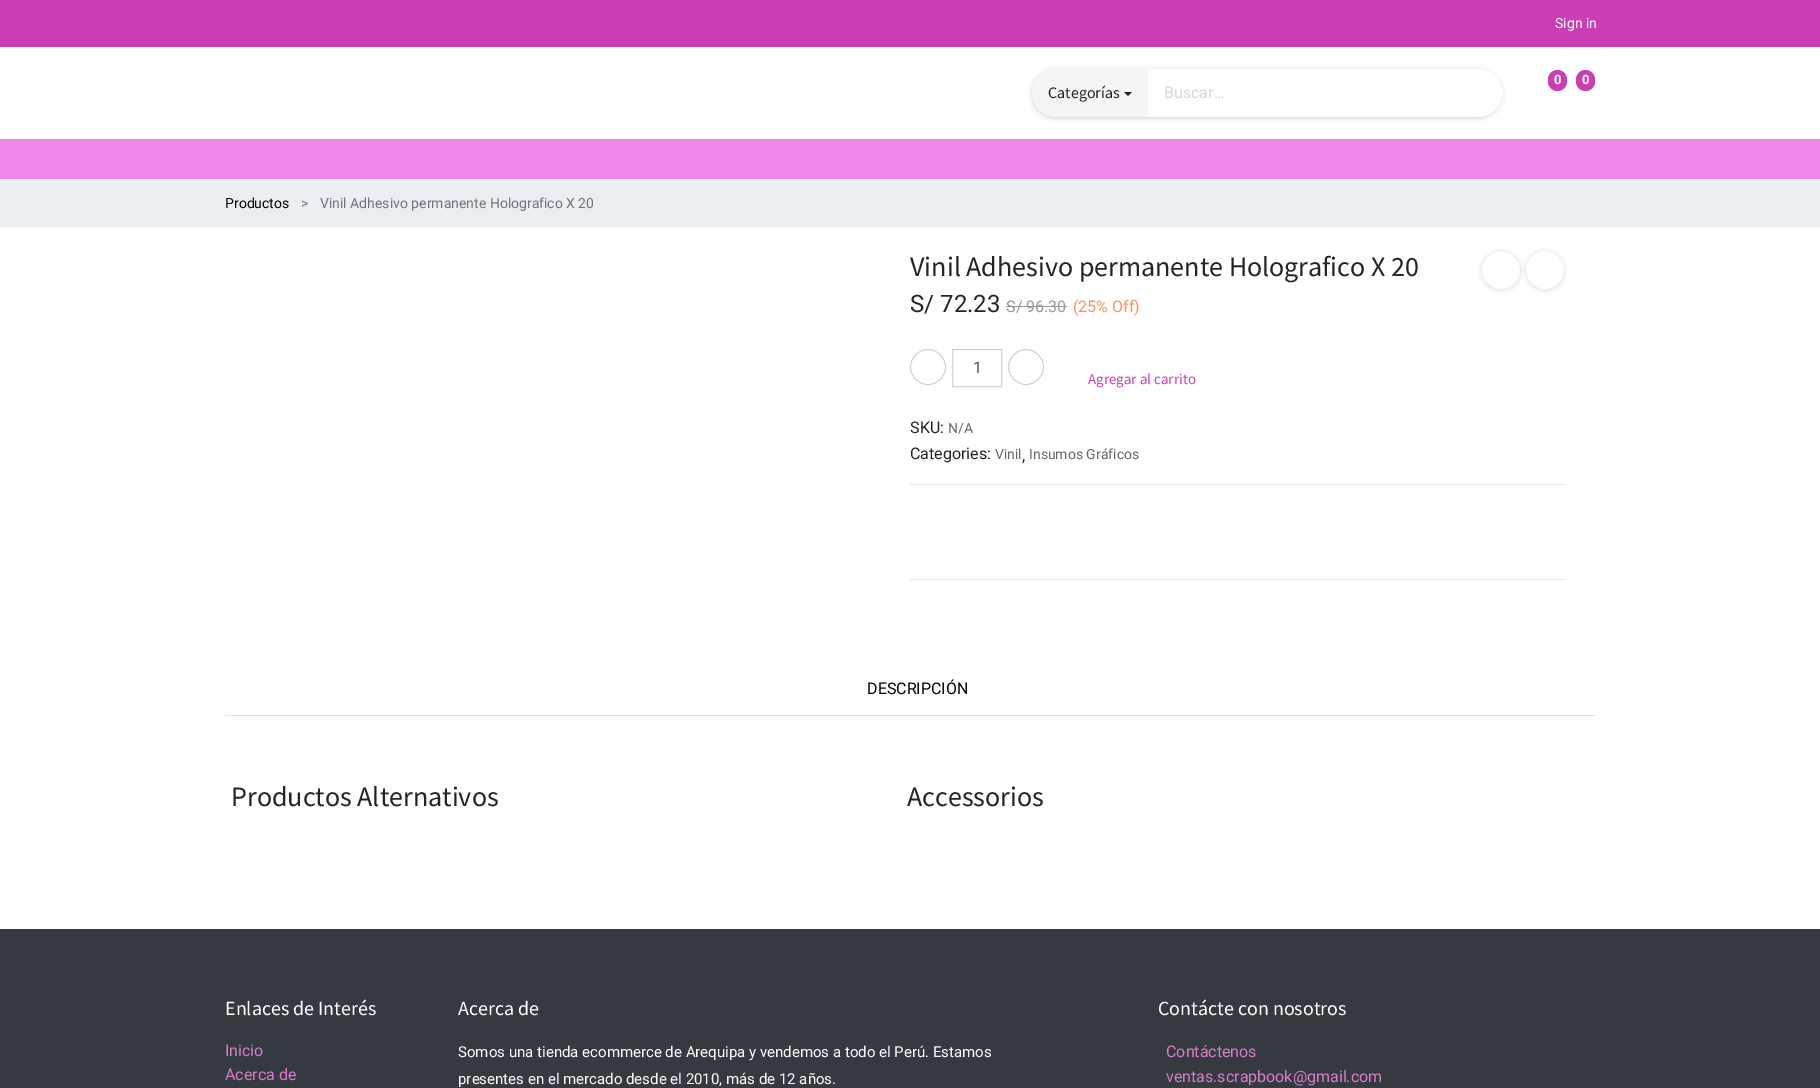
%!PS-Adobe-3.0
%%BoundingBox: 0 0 1820 1088
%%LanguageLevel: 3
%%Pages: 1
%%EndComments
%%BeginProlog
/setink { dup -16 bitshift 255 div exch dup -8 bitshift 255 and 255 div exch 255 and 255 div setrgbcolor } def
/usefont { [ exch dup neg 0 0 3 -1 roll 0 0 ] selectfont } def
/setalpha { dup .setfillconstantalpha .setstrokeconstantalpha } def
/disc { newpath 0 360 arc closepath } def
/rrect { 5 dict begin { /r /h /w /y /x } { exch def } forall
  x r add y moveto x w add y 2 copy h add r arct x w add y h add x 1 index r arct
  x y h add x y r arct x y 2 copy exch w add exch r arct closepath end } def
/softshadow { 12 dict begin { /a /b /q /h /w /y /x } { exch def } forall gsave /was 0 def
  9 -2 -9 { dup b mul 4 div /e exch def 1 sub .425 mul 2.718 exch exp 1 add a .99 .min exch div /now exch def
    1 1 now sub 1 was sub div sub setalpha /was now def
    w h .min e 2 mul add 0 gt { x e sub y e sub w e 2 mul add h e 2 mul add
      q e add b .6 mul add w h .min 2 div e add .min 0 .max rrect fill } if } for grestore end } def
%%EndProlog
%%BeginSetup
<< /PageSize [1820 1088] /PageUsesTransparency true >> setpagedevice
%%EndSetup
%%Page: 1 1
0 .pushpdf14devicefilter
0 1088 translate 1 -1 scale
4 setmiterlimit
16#FFFFFF setink
0 0 1820 1088 rectfill
16#CA3EB4 setink
0 0 1820 47 rectfill
/Roboto-Regular 14 usefont
16#FFFFFF setink
1555 28 moveto (Sign in) show
16#CA3EB4 setink
1548 70 19 21 9.5 rrect fill
/Roboto-Bold 13 usefont
16#FFFFFF setink
1554 84 moveto (0) show
16#CA3EB4 setink
1576 70 19 21 9.5 rrect fill
16#FFFFFF setink
1582 84 moveto (0) show
16#202124 setink
1032 70 469 48 24 2.5 0.2 softshadow
16#F5F5F5 setink
1056 69 moveto 1148 69 lineto 1148 117 lineto 1056 117 lineto 1042.5 117 1032 106.5 1032 93 curveto 1032 79.5 1042.5 69 1056 69 curveto closepath fill
/SourceSansPro-Regular 16 usefont
16#212529 setink
1048 98 moveto (Categorías) show
1124 92 moveto 1132 92 lineto 1128 96 lineto closepath fill
16#FFFFFF setink
1148 69 moveto 1478 69 lineto 1491.5 69 1502 79.5 1502 93 curveto 1502 106.5 1491.5 117 1478 117 curveto 1148 117 lineto closepath fill
/Roboto-Regular 16 usefont
16#D8D8D8 setink
1164 98 moveto (Buscar…) show
16#EF85E6 setink
0 139 1820 40 rectfill
16#EAEFF3 setink
0 179 1820 48 rectfill
/Roboto-Regular 14 usefont
16#000000 setink
225 208 moveto (Productos) show
16#6C757D setink
301 208 moveto (>) show
320 208 moveto (Vinil Adhesivo permanente Holografico X 20) show
/SourceSansPro-Regular 28 usefont
16#212529 setink
910 276 moveto (Vinil Adhesivo permanente Holografico X 20) show
16#000000 setink
1481 251 40 40 20 2 0.1 softshadow
16#FFFFFF setink
1501 270 19.5 disc gsave fill grestore
16#F0F0F0 setink
stroke
16#000000 setink
1525 251 40 40 20 2 0.1 softshadow
16#FFFFFF setink
1545 270 19.5 disc gsave fill grestore
16#F0F0F0 setink
stroke
/Roboto-Regular 24 usefont
16#212529 setink
910 312 moveto (S/ 72.23) show
/Roboto-Regular 16 usefont
16#969696 setink
1006 312 moveto (S/ 96.30) show
1006 306 61 1 rectfill
16#FF905A setink
1073 312 moveto (\(25% Off\)) show
16#CED4DA setink
928 367 17.5 disc stroke
952.5 349.5 49 37 rectstroke
16#495057 setink
973 373 moveto (1) show
16#CED4DA setink
1026 367 17.5 disc stroke
/SourceSansPro-Regular 15 usefont
16#CA3EB4 setink
1088 384 moveto (Agregar al carrito) show
/Roboto-Regular 16 usefont
16#212529 setink
910 433 moveto (SKU:) show
/Roboto-Regular 14 usefont
16#646669 setink
948 433 moveto (N/A) show
/Roboto-Regular 16 usefont
16#212529 setink
910 459 moveto (Categories:) show
/Roboto-Regular 14 usefont
16#646669 setink
995 459 moveto (Vinil) show
/Roboto-Regular 16 usefont
16#212529 setink
1022 461 moveto (,) show
/Roboto-Regular 14 usefont
16#646669 setink
1029 459 moveto (Insumos Gráficos) show
[
    [910 484 655 1 16#E6E6E6]
    [910 579 655 1 16#E6E6E6]
    [225 715 1370 1 16#DEE2E6]
] { aload pop setink rectfill } forall
/Roboto-Regular 16 usefont
16#000000 setink
867 694 moveto (DESCRIPCIÓN) show
/SourceSansPro-Regular 28 usefont
16#212529 setink
231 806 moveto (Productos Alternativos) show
907 806 moveto (Accessorios) show
16#343A40 setink
0 929 1820 159 rectfill
/SourceSansPro-Regular 20 usefont
16#FFFFFF setink
225 1015 moveto (Enlaces de Interés) show
/Roboto-Regular 16 usefont
16#DA7ACB setink
225 1056 moveto (Inicio) show
225 1080 moveto (Acerca de) show
/SourceSansPro-Regular 20 usefont
16#FFFFFF setink
458 1015 moveto (Acerca de) show
/Roboto-Regular 15 usefont
458 1057 moveto (Somos una tienda ecommerce de Arequipa y vendemos a todo el Perú. Estamos) show
458 1084 moveto (presentes en el mercado desde el 2010, más de 12 años.) show
/SourceSansPro-Regular 20 usefont
1158 1015 moveto (Contácte con nosotros) show
/Roboto-Regular 16 usefont
16#DA7ACB setink
1166 1057 moveto (Contáctenos) show
1166 1082 moveto (ventas.scrapbook@gmail.com) show
.poppdf14devicefilter showpage
%%EOF
